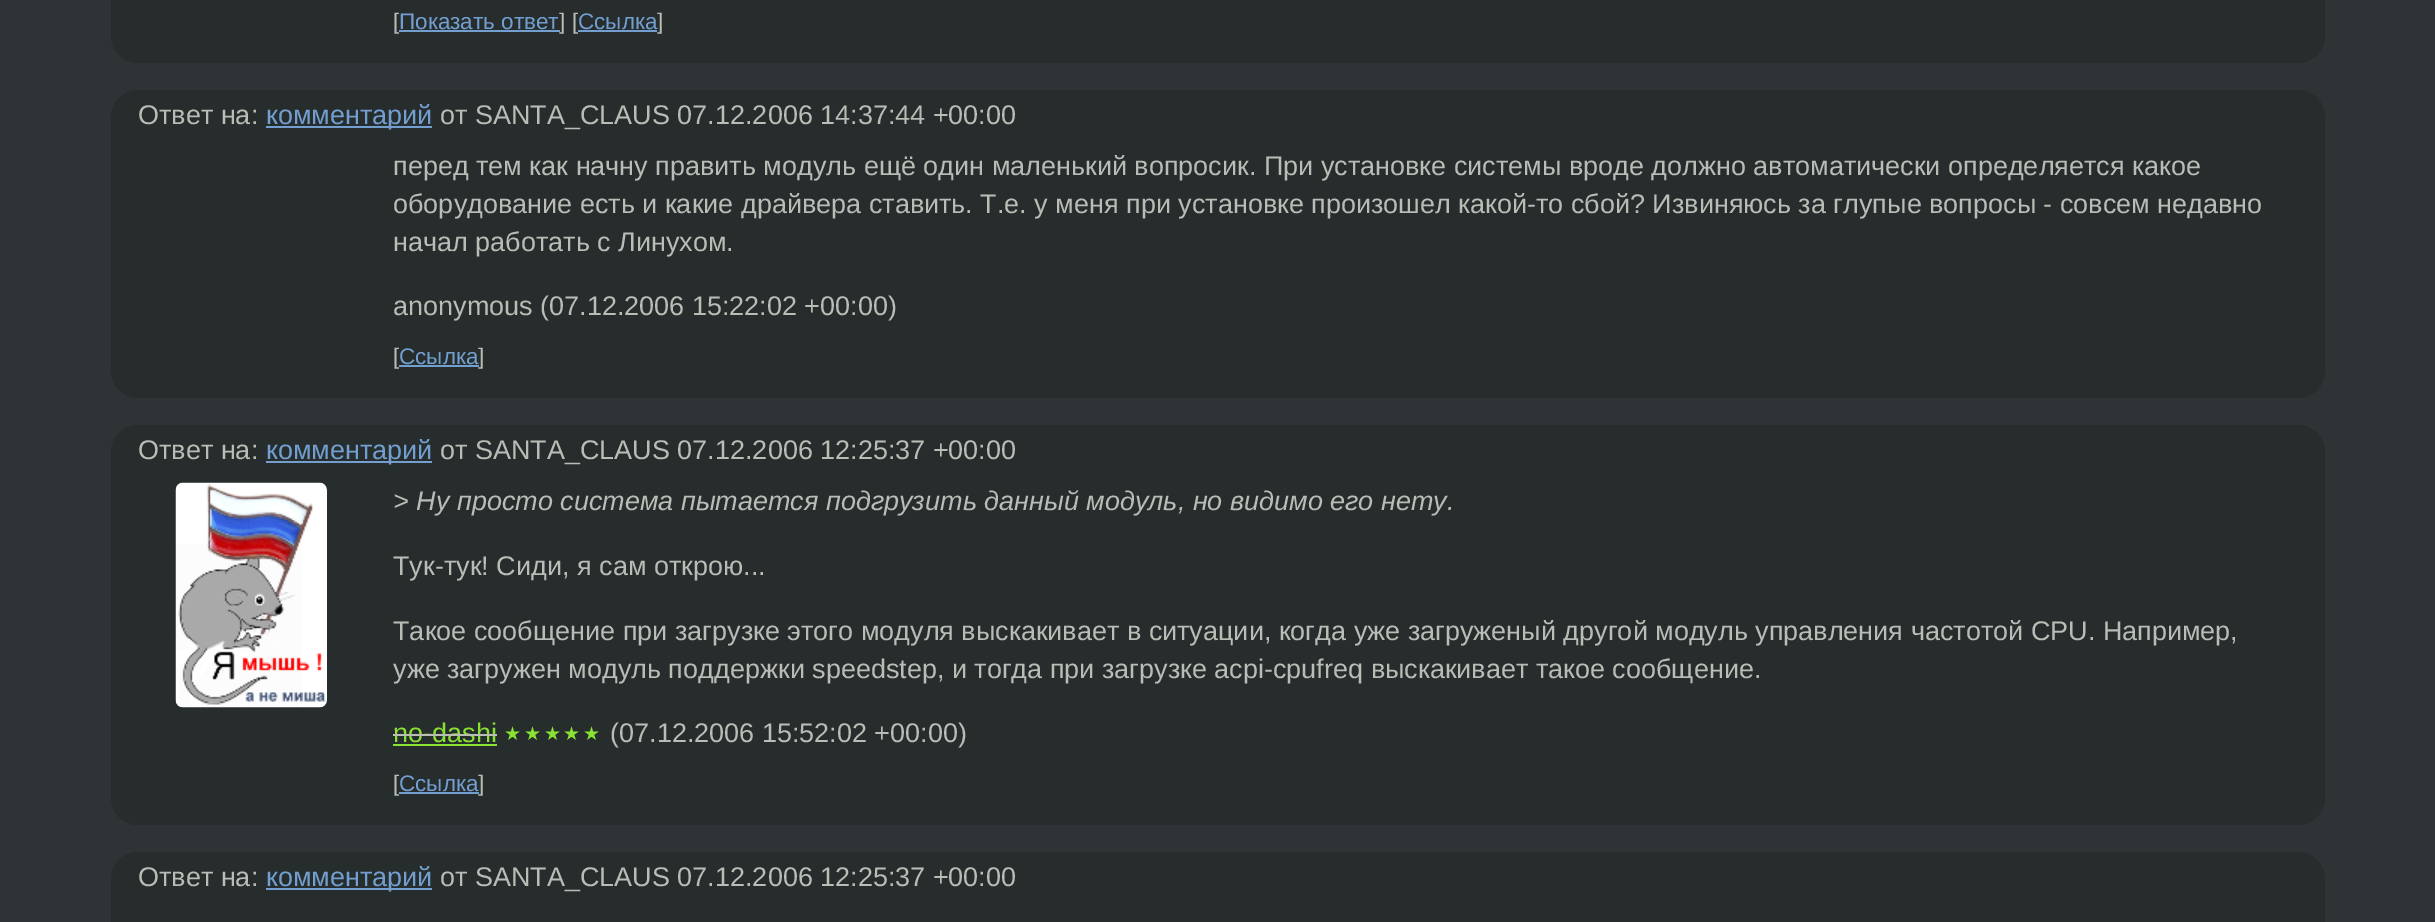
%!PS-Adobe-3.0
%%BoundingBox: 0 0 2435 922
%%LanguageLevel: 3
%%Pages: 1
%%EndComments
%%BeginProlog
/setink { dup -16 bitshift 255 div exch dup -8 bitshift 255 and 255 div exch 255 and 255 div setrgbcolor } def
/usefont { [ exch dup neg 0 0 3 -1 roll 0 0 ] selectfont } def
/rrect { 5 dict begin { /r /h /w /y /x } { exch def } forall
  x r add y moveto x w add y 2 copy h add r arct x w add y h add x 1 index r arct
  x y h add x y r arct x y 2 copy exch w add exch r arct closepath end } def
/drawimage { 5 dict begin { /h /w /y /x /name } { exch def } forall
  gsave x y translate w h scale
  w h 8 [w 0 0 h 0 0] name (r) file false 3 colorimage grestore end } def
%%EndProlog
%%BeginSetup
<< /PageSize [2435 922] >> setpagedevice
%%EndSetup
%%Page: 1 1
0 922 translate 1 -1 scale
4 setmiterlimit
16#2E3436 setink
0 0 2435 922 rectfill
16#272C2D setink
111 -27 2214 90 27 rrect fill
/LiberationSans-Regular 22.5 usefont
16#BABDB6 setink
393 29 moveto ([) show
16#729FCF setink
399 30 161 2 rectfill
399 29 moveto (Показать ответ) show
16#BABDB6 setink
559 29 moveto (] [) show
16#729FCF setink
578 30 79 2 rectfill
578 29 moveto (Ссылка) show
16#BABDB6 setink
657 29 moveto (]) show
16#272C2D setink
111 90 2214 308 27 rrect fill
/LiberationSans-Regular 27 usefont
16#BABDB6 setink
138 124 moveto (Ответ на:) show
16#729FCF setink
266 126 166 2 rectfill
266 124 moveto (комментарий) show
16#BABDB6 setink
[
    [(от SANTA_CLAUS 07.12.2006 14:37:44 +00:00) 440 124]
    [(перед тем как начну править модуль ещё один маленький вопросик. При установке системы вроде должно автоматически определяется какое) 393 175]
    [(оборудование есть и какие драйвера ставить. Т.е. у меня при установке произошел какой-то сбой? Извиняюсь за глупые вопросы - совсем недавно) 393 213]
    [(начал работать с Линухом.) 393 251]
    [(anonymous \(07.12.2006 15:22:02 +00:00\)) 393 315]
] { aload pop moveto show } forall
/LiberationSans-Regular 22.5 usefont
393 364 moveto ([) show
16#729FCF setink
399 365 80 2 rectfill
399 364 moveto (Ссылка) show
16#BABDB6 setink
478 364 moveto (]) show
16#272C2D setink
111 425 2214 400 27 rrect fill
/LiberationSans-Regular 27 usefont
16#BABDB6 setink
138 459 moveto (Ответ на:) show
16#729FCF setink
266 461 166 2 rectfill
266 459 moveto (комментарий) show
16#BABDB6 setink
440 459 moveto (от SANTA_CLAUS 07.12.2006 12:25:37 +00:00) show
(img1.raw) 175 482 152 226 drawimage
/LiberationSans-Italic 27 usefont
393 510 moveto (> Ну просто система пытается подгрузить данный модуль, но видимо его нету.) show
/LiberationSans-Regular 27 usefont
[
    [(Тук-тук! Сиди, я сам открою...) 393 575]
    [(Такое сообщение при загрузке этого модуля выскакивает в ситуации, когда уже загруженый другой модуль управления частотой CPU. Например,) 393 640]
    [(уже загружен модуль поддержки speedstep, и тогда при загрузке acpi-cpufreq выскакивает такое сообщение.) 393 678]
] { aload pop moveto show } forall
16#8AE234 setink
393 742 moveto (no-dashi) show
393 744 104 2 rectfill
16#BABDB6 setink
393 734 104 2 rectfill
/DejaVuSans-Regular 19 usefont
16#8AE234 setink
504 740 moveto 2.75 0 (★★★★★) ashow
/LiberationSans-Regular 27 usefont
16#BABDB6 setink
610 742 moveto (\(07.12.2006 15:52:02 +00:00\)) show
/LiberationSans-Regular 22.5 usefont
393 791 moveto ([) show
16#729FCF setink
399 792 80 2 rectfill
399 791 moveto (Ссылка) show
16#BABDB6 setink
478 791 moveto (]) show
16#272C2D setink
111 852 2214 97 27 rrect fill
/LiberationSans-Regular 27 usefont
16#BABDB6 setink
138 886 moveto (Ответ на:) show
16#729FCF setink
266 888 166 2 rectfill
266 886 moveto (комментарий) show
16#BABDB6 setink
440 886 moveto (от SANTA_CLAUS 07.12.2006 12:25:37 +00:00) show
showpage
%%EOF
